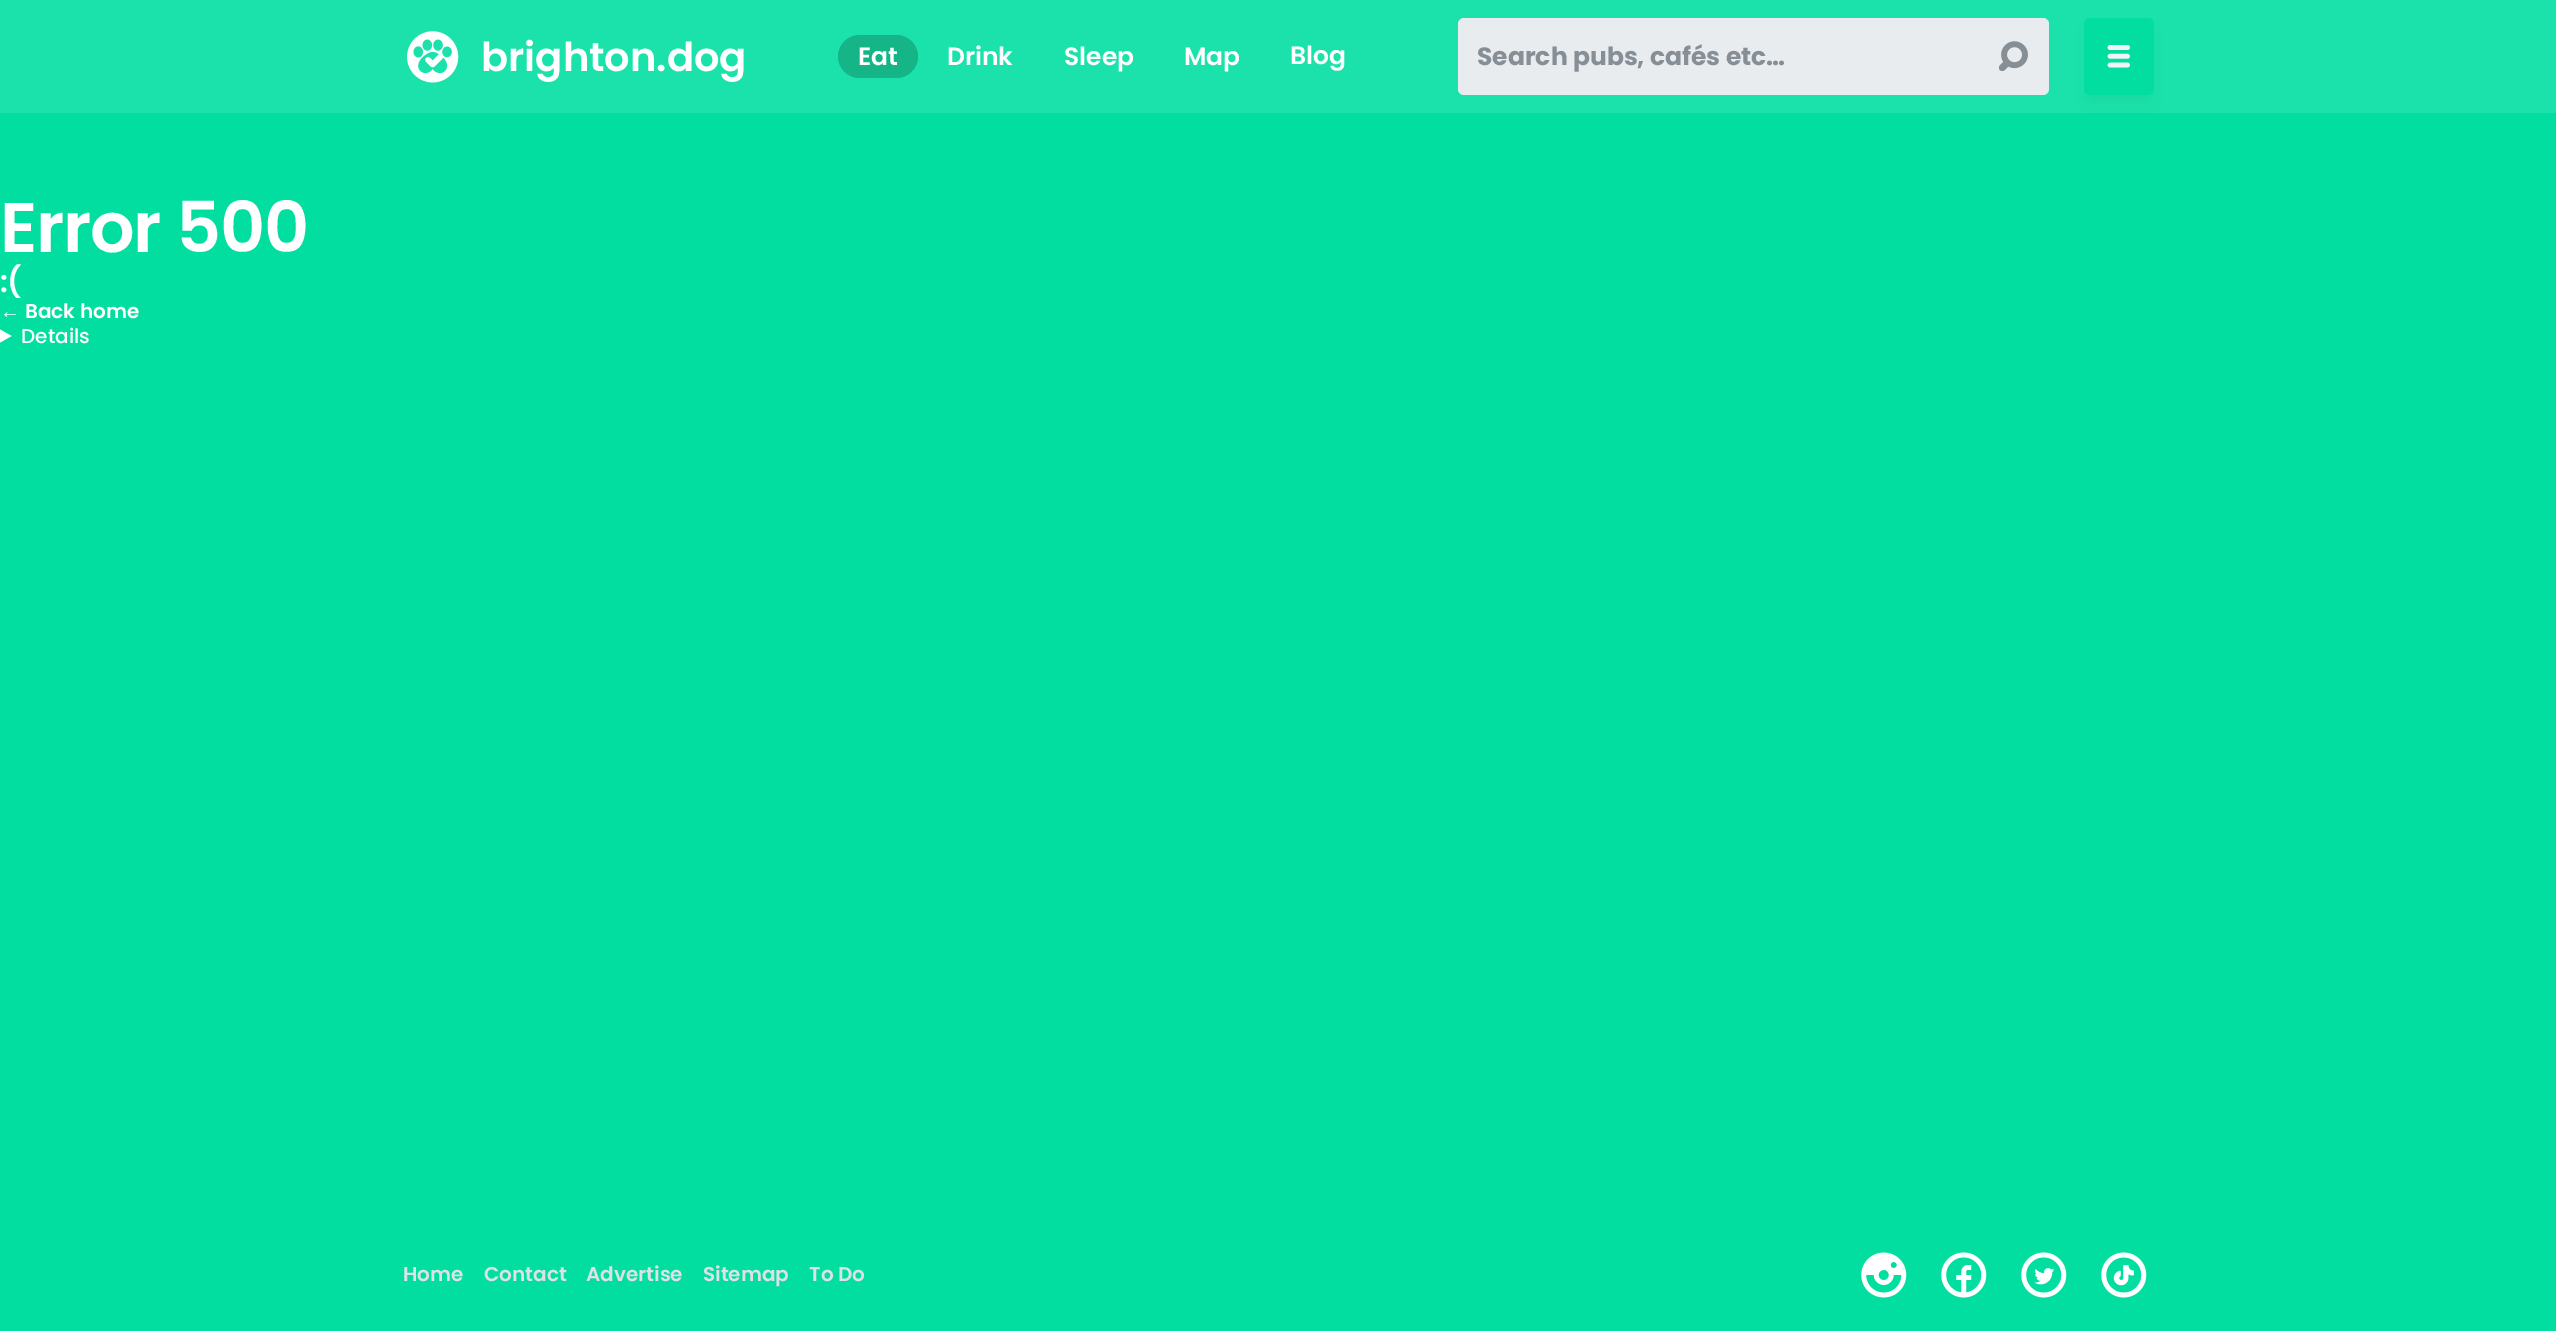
%!PS-Adobe-3.0
%%BoundingBox: 0 0 2556 1331
%%LanguageLevel: 3
%%Pages: 1
%%EndComments
%%BeginProlog
/setink { dup -16 bitshift 255 div exch dup -8 bitshift 255 and 255 div exch 255 and 255 div setrgbcolor } def
/usefont { [ exch dup neg 0 0 3 -1 roll 0 0 ] selectfont } def
/setalpha { dup .setfillconstantalpha .setstrokeconstantalpha } def
/rrect { 5 dict begin { /r /h /w /y /x } { exch def } forall
  x r add y moveto x w add y 2 copy h add r arct x w add y h add x 1 index r arct
  x y h add x y r arct x y 2 copy exch w add exch r arct closepath end } def
/softshadow { 12 dict begin { /a /b /q /h /w /y /x } { exch def } forall gsave /was 0 def
  9 -2 -9 { dup b mul 4 div /e exch def 1 sub .425 mul 2.718 exch exp 1 add a .99 .min exch div /now exch def
    1 1 now sub 1 was sub div sub setalpha /was now def
    w h .min e 2 mul add 0 gt { x e sub y e sub w e 2 mul add h e 2 mul add
      q e add b .6 mul add w h .min 2 div e add .min 0 .max rrect fill } if } for grestore end } def
/drawimage { 5 dict begin { /h /w /y /x /name } { exch def } forall
  gsave x y translate w h scale
  w h 8 [w 0 0 h 0 0] name (r) file false 3 colorimage grestore end } def
%%EndProlog
%%BeginSetup
<< /PageSize [2556 1331] /PageUsesTransparency true >> setpagedevice
%%EndSetup
%%Page: 1 1
0 .pushpdf14devicefilter
0 1331 translate 1 -1 scale
4 setmiterlimit
16#02DEA0 setink
0 0 2556 1331 rectfill
16#1BE2AA setink
0 0 2556 113 rectfill
(img1.raw) 407 31 52 52 drawimage
/Poppins-SemiBold 40 usefont
16#FFFFFF setink
481 71 moveto (brighton.dog) show
16#16B588 setink
838 35 80 43 21.5 rrect fill
/Poppins-SemiBold 25 usefont
16#FFFFFF setink
[
    [(Eat) 858 65]
    [(Drink) 947 65]
    [(Sleep) 1064 65]
    [(Map) 1184 65]
    [(Blog) 1290 64]
] { aload pop moveto show } forall
16#E9ECEF setink
1458 18 591 77 6 rrect fill
/Poppins-Bold 25 usefont
16#868E96 setink
1477 65 moveto (Search pubs, cafés etc…) show
(img2.raw) 1999 41 29 30 drawimage
16#000000 setink
2090 33 58 65 0 9 0.06 softshadow
16#02DEA0 setink
2084 18 70 77 6 rrect fill
(img3.raw) 2107 45 23 23 drawimage
/Poppins-SemiBold 70 usefont
16#FFFFFF setink
0 252 moveto -1.25 0 (Error 500) ashow
/Poppins-SemiBold 30 usefont
0 292 moveto -1 0 (:\() ashow
/LiberationSans-Bold 20 usefont
0 318 moveto (←) show
/Poppins-SemiBold 20 usefont
25 318 moveto (Back home) show
0 329.5 moveto 11.5 336 lineto 0 342.5 lineto closepath fill
/Poppins-Medium 20 usefont
21 343 moveto (Details) show
/Poppins-SemiBold 20 usefont
16#DEE2E6 setink
[
    [(Home) 403 1281]
    [(Contact) 484 1281]
    [(Advertise) 586 1281]
    [(Sitemap) 703 1281]
    [(To Do) 809 1281]
] { aload pop moveto show } forall
(img4.raw) 1861 1252 46 46 drawimage
(img5.raw) 1941 1252 46 46 drawimage
(img6.raw) 2021 1252 46 46 drawimage
(img7.raw) 2101 1252 46 46 drawimage
.poppdf14devicefilter showpage
%%EOF
